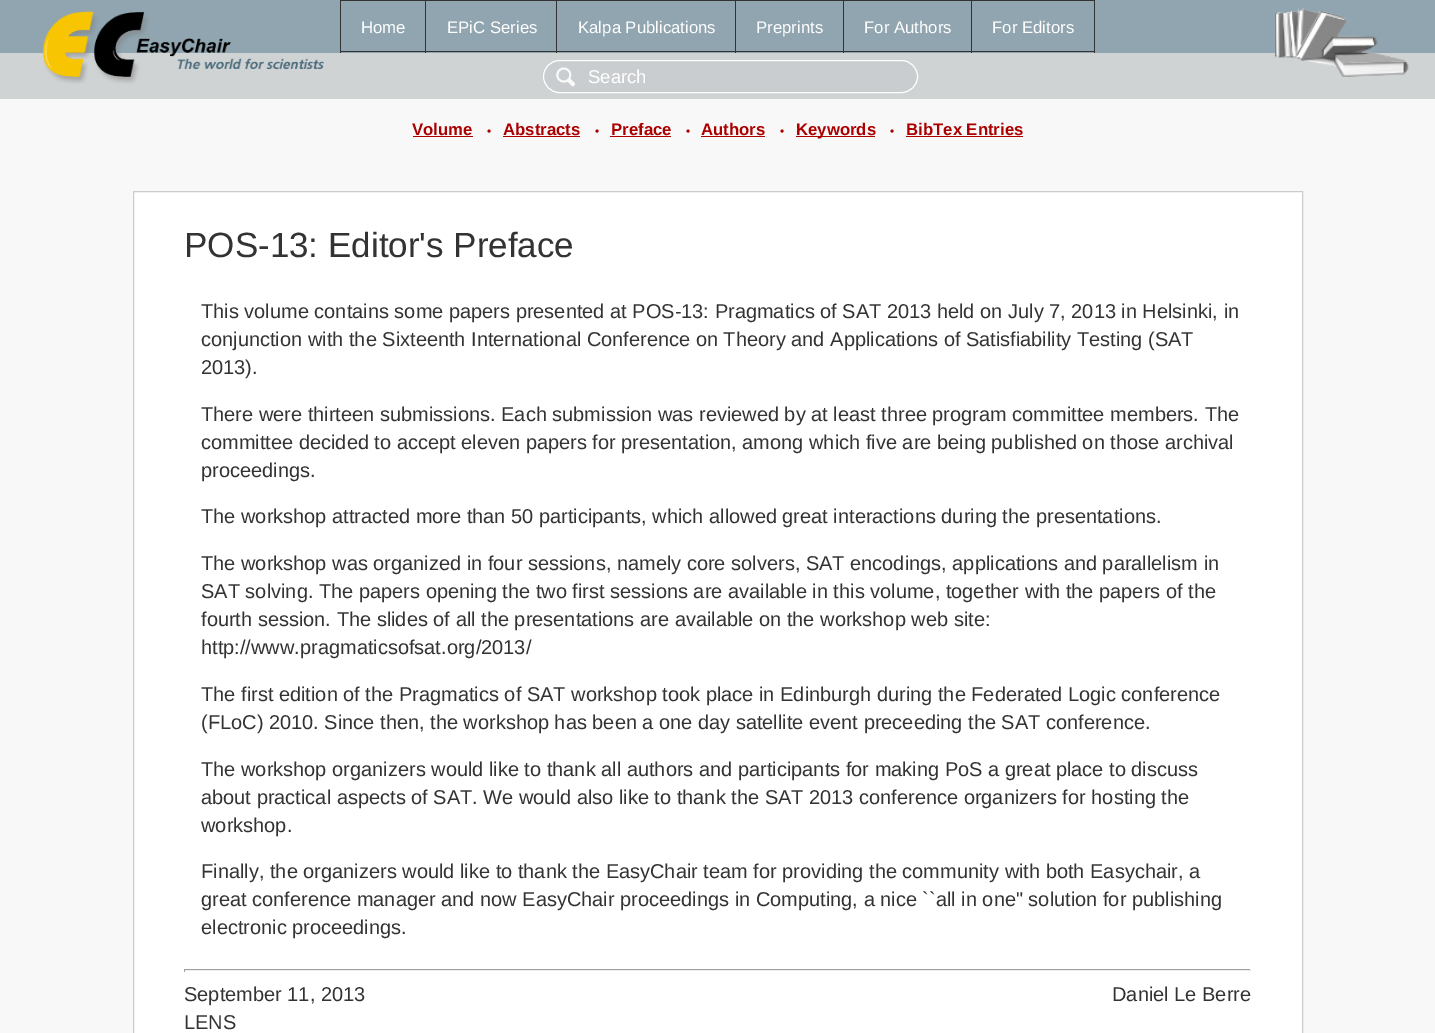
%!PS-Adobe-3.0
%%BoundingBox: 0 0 1435 1033
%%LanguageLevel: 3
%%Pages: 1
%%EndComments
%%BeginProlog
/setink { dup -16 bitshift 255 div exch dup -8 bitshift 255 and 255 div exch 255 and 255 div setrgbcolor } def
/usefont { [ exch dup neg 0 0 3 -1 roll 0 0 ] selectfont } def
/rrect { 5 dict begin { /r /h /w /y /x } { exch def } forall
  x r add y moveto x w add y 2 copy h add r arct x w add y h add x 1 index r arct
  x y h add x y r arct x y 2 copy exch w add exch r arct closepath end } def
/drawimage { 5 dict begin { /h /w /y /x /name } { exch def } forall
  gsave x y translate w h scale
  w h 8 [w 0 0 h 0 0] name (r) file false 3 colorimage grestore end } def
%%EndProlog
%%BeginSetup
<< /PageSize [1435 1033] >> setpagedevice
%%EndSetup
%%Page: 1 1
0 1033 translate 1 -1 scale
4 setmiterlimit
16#90A5B0 setink
0 0 1435 1033 rectfill
16#D0D3D4 setink
0 54 1434 44 rectfill
0 53 1435 1 rectfill
(img1.raw) 43 11 281 73 drawimage
[
    [971 0 124 1 16#333333]
    [1094 0 1 53 16#333333]
    [971 51 124 1 16#333333]
    [971 0 1 53 16#333333]
    [843 0 130 1 16#333333]
    [843 51 130 1 16#333333]
    [843 0 1 53 16#333333]
    [735 0 109 1 16#333333]
    [735 51 109 1 16#333333]
    [735 0 1 53 16#333333]
    [556 0 180 1 16#333333]
    [556 51 180 1 16#333333]
    [556 0 1 53 16#333333]
    [425 0 133 1 16#333333]
    [425 51 133 1 16#333333]
    [425 0 1 53 16#333333]
    [340 0 86 1 16#333333]
    [340 51 86 1 16#333333]
    [340 0 1 53 16#333333]
] { aload pop setink rectfill } forall
/LiberationSans-Regular 16.75 usefont
16#FFFFFF setink
[
    [(Home) 361 33]
    [(EPiC Series) 447 33]
    [(Kalpa Publications) 578 33]
    [(Preprints) 756 33]
    [(For Authors) 864 33]
    [(For Editors) 992 33]
] { aload pop moveto show } forall
(img2.raw) 1275 8 134 69 drawimage
16#D0D3D4 setink
1434 53 1 46 rectfill
0 98 1435 1 rectfill
16#C9CDD0 setink
543 60 375 33 16.5 rrect fill
(img3.raw) 556 67 19 20 drawimage
16#FFFFFF setink
543.5 60.5 374 32 16 rrect stroke
/LiberationSans-Regular 18.5 usefont
588 83 moveto (Search) show
16#F8F8F8 setink
0 99 1435 934 rectfill
/LiberationSans-Bold 16.75 usefont
16#AA0000 setink
412 135 moveto (Volume) show
413 136 60 1 rectfill
/LiberationSans-Regular 12 usefont
487 135 moveto (•) show
/LiberationSans-Bold 16.75 usefont
503 135 moveto (Abstracts) show
503 136 77 1 rectfill
/LiberationSans-Regular 12 usefont
595 135 moveto (•) show
/LiberationSans-Bold 16.75 usefont
611 135 moveto (Preface) show
610 136 61 1 rectfill
/LiberationSans-Regular 12 usefont
686 135 moveto (•) show
/LiberationSans-Bold 16.75 usefont
701 135 moveto (Authors) show
701 136 64 1 rectfill
/LiberationSans-Regular 12 usefont
780 135 moveto (•) show
796 136 79 1 rectfill
/LiberationSans-Bold 16.75 usefont
796 135 moveto (Keywords) show
/LiberationSans-Regular 12 usefont
890 135 moveto (•) show
/LiberationSans-Bold 16.75 usefont
906 135 moveto (BibTex Entries) show
906 136 117 1 rectfill
16#FFFFFF setink
133.5 191.5 moveto 1302.5 191.5 lineto 1302.5 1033.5 lineto 133.5 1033.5 lineto closepath gsave fill grestore
16#CCCCCC setink
stroke
/LiberationSans-Regular 35 usefont
16#333333 setink
184 257 moveto (POS-13: Editor's Preface) show
/LiberationSans-Regular 20 usefont
[
    [(This volume contains some papers presented at POS-13: Pragmatics of SAT 2013 held on July 7, 2013 in Helsinki, in) 201 318]
    [(conjunction with the Sixteenth International Conference on Theory and Applications of Satisfiability Testing \(SAT) 201 346]
    [(2013\).) 201 374]
    [(There were thirteen submissions. Each submission was reviewed by at least three program committee members. The) 201 421]
    [(committee decided to accept eleven papers for presentation, among which five are being published on those archival) 201 449]
    [(proceedings.) 201 477]
    [(The workshop attracted more than 50 participants, which allowed great interactions during the presentations.) 201 523]
    [(The workshop was organized in four sessions, namely core solvers, SAT encodings, applications and parallelism in) 201 570]
    [(SAT solving. The papers opening the two first sessions are available in this volume, together with the papers of the) 201 598]
    [(fourth session. The slides of all the presentations are available on the workshop web site:) 201 626]
    [(http://www.pragmaticsofsat.org/2013/) 201 654]
    [(The first edition of the Pragmatics of SAT workshop took place in Edinburgh during the Federated Logic conference) 201 701]
    [(\(FLoC\) 2010. Since then, the workshop has been a one day satellite event preceeding the SAT conference.) 201 729]
    [(The workshop organizers would like to thank all authors and participants for making PoS a great place to discuss) 201 776]
    [(about practical aspects of SAT. We would also like to thank the SAT 2013 conference organizers for hosting the) 201 804]
    [(workshop.) 201 832]
    [(Finally, the organizers would like to thank the EasyChair team for providing the community with both Easychair, a) 201 878]
    [(great conference manager and now EasyChair proceedings in Computing, a nice ``all in one" solution for publishing) 201 906]
    [(electronic proceedings.) 201 934]
] { aload pop moveto show } forall
[
    [184 969 1067 1 16#9F9F9F]
    [1250 969 1 3 16#EEEEEE]
    [184 970 1067 1 16#EEEEEE]
    [184 969 1 3 16#9F9F9F]
] { aload pop setink rectfill } forall
16#333333 setink
[
    [(September 11, 2013) 184 1001]
    [(LENS) 184 1029]
    [(Daniel Le Berre) 1112 1001]
] { aload pop moveto show } forall
showpage
%%EOF
